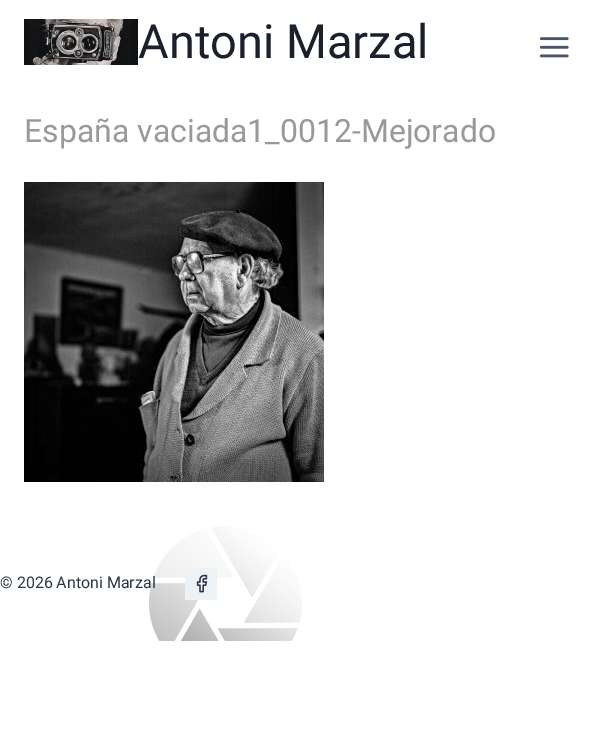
%!PS-Adobe-3.0
%%BoundingBox: 0 0 604 741
%%LanguageLevel: 3
%%Pages: 1
%%EndComments
%%BeginProlog
/setink { dup -16 bitshift 255 div exch dup -8 bitshift 255 and 255 div exch 255 and 255 div setrgbcolor } def
/usefont { [ exch dup neg 0 0 3 -1 roll 0 0 ] selectfont } def
/drawimage { 5 dict begin { /h /w /y /x /name } { exch def } forall
  gsave x y translate w h scale
  w h 8 [w 0 0 h 0 0] name (r) file false 3 colorimage grestore end } def
%%EndProlog
%%BeginSetup
<< /PageSize [604 741] >> setpagedevice
%%EndSetup
%%Page: 1 1
0 741 translate 1 -1 scale
4 setmiterlimit
16#FFFFFF setink
0 0 604 741 rectfill
(img1.raw) 24 19 114 46 drawimage
/Roboto-Regular 47 usefont
16#1A202C setink
138 58 moveto (Antoni Marzal) show
(img2.raw) 539 37 30 21 drawimage
/Roboto-Regular 32 usefont
16#999999 setink
24 142 moveto (España vaciada1_0012-Mejorado) show
(img3.raw) 24 182 300 300 drawimage
(img4.raw) 149 526 153 115 drawimage
/Roboto-Regular 16 usefont
16#2D3748 setink
0 588 moveto (© 2026 Antoni Marzal) show
16#EDF2F7 setink
185 568 32 32 rectfill
(img5.raw) 196 574 12 19 drawimage
showpage
%%EOF
